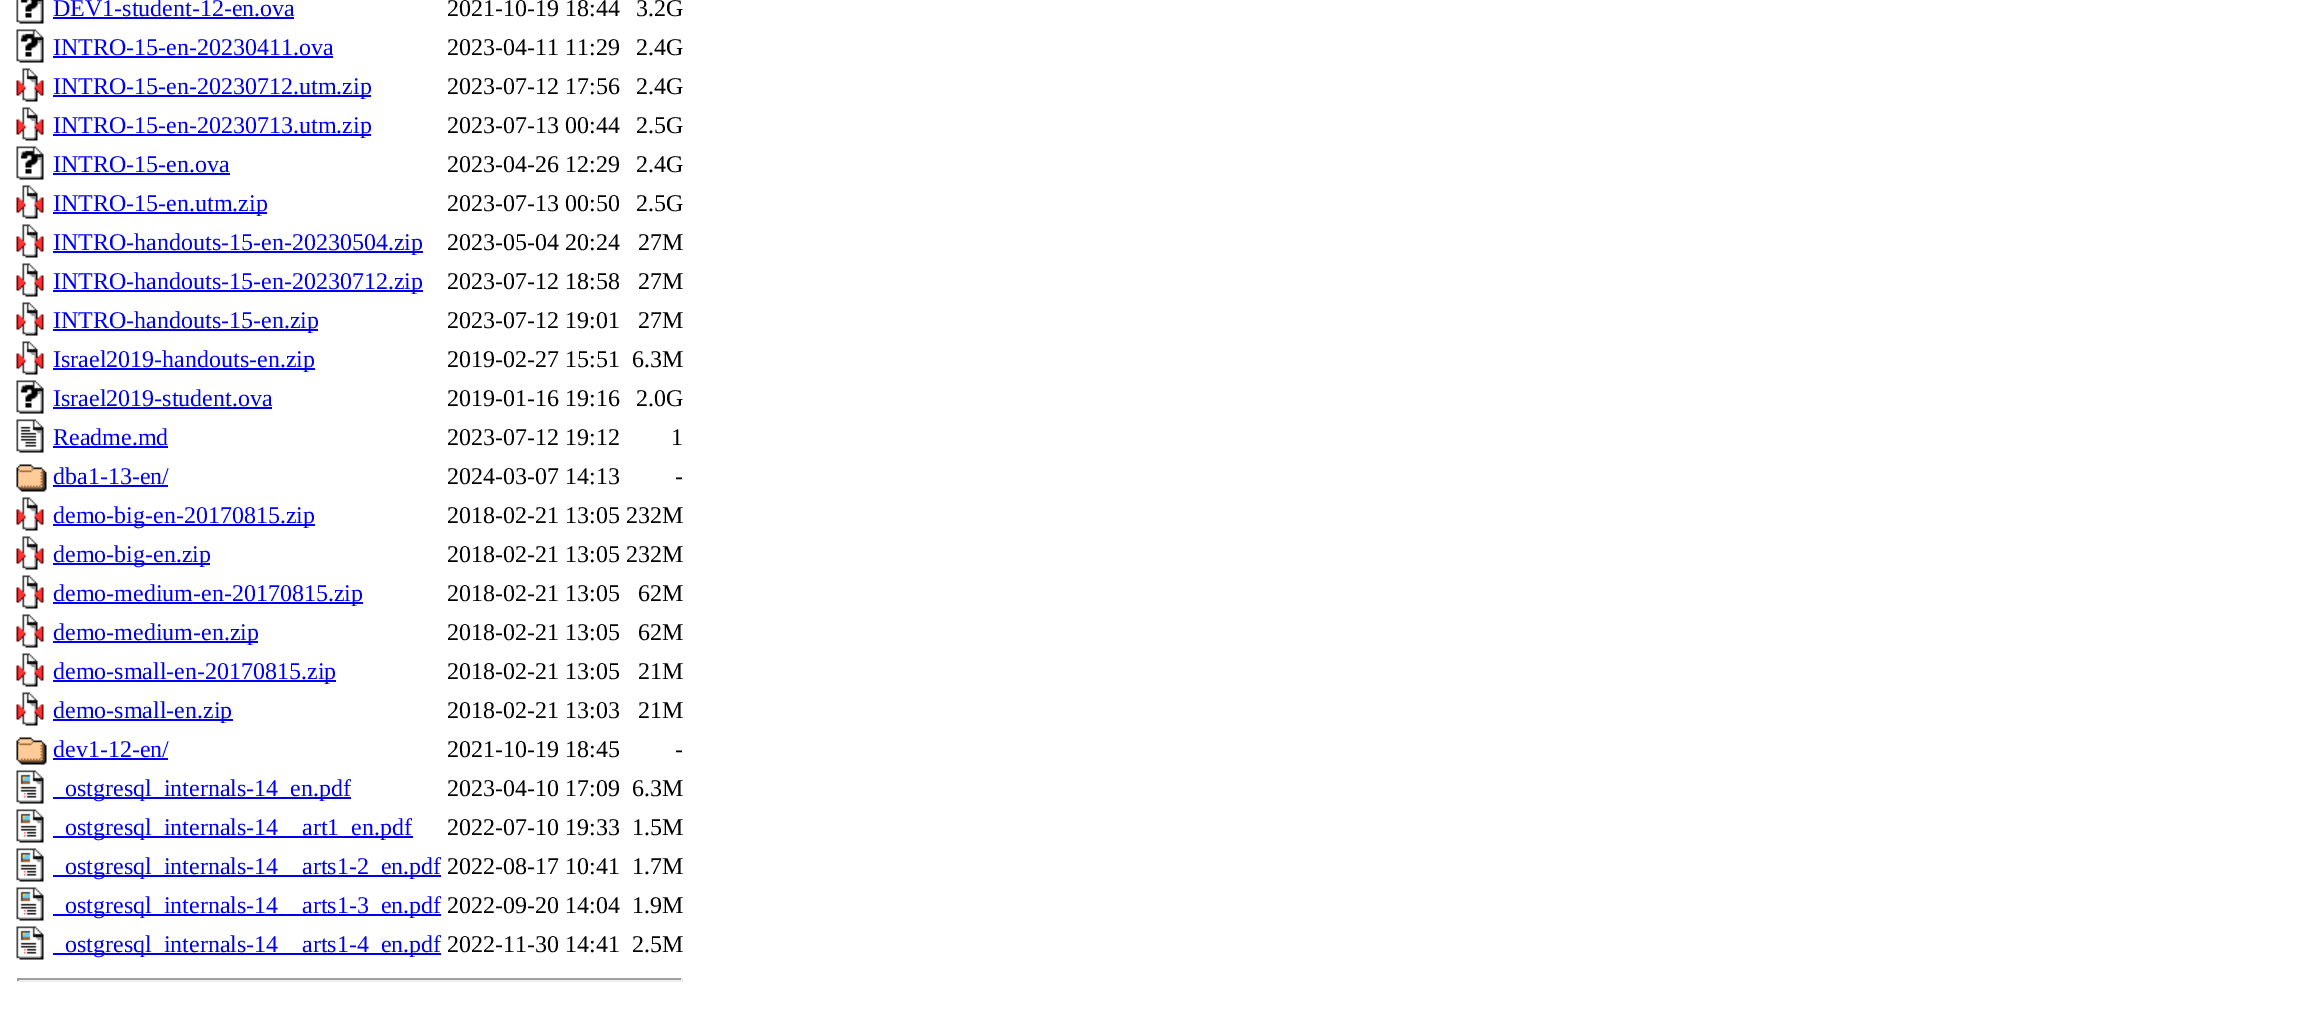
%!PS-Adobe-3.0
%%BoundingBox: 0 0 2304 1009
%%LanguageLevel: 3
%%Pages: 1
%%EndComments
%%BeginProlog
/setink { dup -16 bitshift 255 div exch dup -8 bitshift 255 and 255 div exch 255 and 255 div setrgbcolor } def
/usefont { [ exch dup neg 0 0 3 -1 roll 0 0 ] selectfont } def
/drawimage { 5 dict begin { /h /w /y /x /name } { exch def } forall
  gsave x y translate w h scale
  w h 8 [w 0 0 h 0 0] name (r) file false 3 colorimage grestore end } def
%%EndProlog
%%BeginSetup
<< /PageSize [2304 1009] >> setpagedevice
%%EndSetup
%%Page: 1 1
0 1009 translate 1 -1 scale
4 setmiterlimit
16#FFFFFF setink
0 0 2304 1009 rectfill
(img1.raw) 16 0 28 24 drawimage
/LiberationSerif-Regular 24 usefont
16#0000EE setink
53 16 moveto (DEV1-student-12-en.ova) show
53 17 241 2 rectfill
16#000000 setink
447 16 moveto (2021-10-19 18:44) show
636 16 moveto (3.2G) show
(img2.raw) 16 29 28 34 drawimage
16#0000EE setink
53 55 moveto (INTRO-15-en-20230411.ova) show
53 56 280 2 rectfill
16#000000 setink
447 55 moveto (2023-04-11 11:29) show
636 55 moveto (2.4G) show
(img3.raw) 16 68 28 34 drawimage
16#0000EE setink
53 95 318 2 rectfill
53 94 moveto (INTRO-15-en-20230712.utm.zip) show
16#000000 setink
447 94 moveto (2023-07-12 17:56) show
636 94 moveto (2.4G) show
(img3.raw) 16 107 28 34 drawimage
16#0000EE setink
53 134 318 2 rectfill
53 133 moveto (INTRO-15-en-20230713.utm.zip) show
16#000000 setink
447 133 moveto (2023-07-13 00:44) show
636 133 moveto (2.5G) show
(img2.raw) 16 146 28 34 drawimage
16#0000EE setink
53 172 moveto (INTRO-15-en.ova) show
53 173 177 2 rectfill
16#000000 setink
447 172 moveto (2023-04-26 12:29) show
636 172 moveto (2.4G) show
(img3.raw) 16 185 28 34 drawimage
16#0000EE setink
53 212 214 2 rectfill
53 211 moveto (INTRO-15-en.utm.zip) show
16#000000 setink
447 211 moveto (2023-07-13 00:50) show
636 211 moveto (2.5G) show
(img3.raw) 16 224 28 34 drawimage
16#0000EE setink
53 251 370 2 rectfill
53 250 moveto (INTRO-handouts-15-en-20230504.zip) show
16#000000 setink
447 250 moveto (2023-05-04 20:24) show
638 250 moveto (27M) show
(img3.raw) 16 263 28 34 drawimage
16#0000EE setink
53 290 370 2 rectfill
53 289 moveto (INTRO-handouts-15-en-20230712.zip) show
16#000000 setink
447 289 moveto (2023-07-12 18:58) show
638 289 moveto (27M) show
(img3.raw) 16 302 28 34 drawimage
16#0000EE setink
53 329 265 2 rectfill
53 328 moveto (INTRO-handouts-15-en.zip) show
16#000000 setink
447 328 moveto (2023-07-12 19:01) show
638 328 moveto (27M) show
(img3.raw) 16 341 28 34 drawimage
16#0000EE setink
53 368 262 2 rectfill
53 367 moveto (Israel2019-handouts-en.zip) show
16#000000 setink
447 367 moveto (2019-02-27 15:51) show
632 367 moveto (6.3M) show
(img2.raw) 16 380 28 34 drawimage
16#0000EE setink
53 406 moveto (Israel2019-student.ova) show
53 407 219 2 rectfill
16#000000 setink
447 406 moveto (2019-01-16 19:16) show
636 406 moveto (2.0G) show
(img4.raw) 16 419 28 34 drawimage
16#0000EE setink
53 445 moveto (Readme.md) show
53 446 115 2 rectfill
16#000000 setink
447 445 moveto (2023-07-12 19:12) show
671 445 moveto (1) show
(img5.raw) 16 464 31 28 drawimage
16#0000EE setink
53 484 moveto (dba1-13-en/) show
53 485 115 2 rectfill
16#000000 setink
447 484 moveto (2024-03-07 14:13) show
675 484 moveto (-) show
(img3.raw) 16 497 28 34 drawimage
16#0000EE setink
53 524 262 2 rectfill
53 523 moveto (demo-big-en-20170815.zip) show
16#000000 setink
447 523 moveto (2018-02-21 13:05 232M) show
(img3.raw) 16 536 28 34 drawimage
16#0000EE setink
53 563 157 2 rectfill
53 562 moveto (demo-big-en.zip) show
16#000000 setink
447 562 moveto (2018-02-21 13:05 232M) show
(img3.raw) 16 575 28 34 drawimage
16#0000EE setink
53 602 310 2 rectfill
53 601 moveto (demo-medium-en-20170815.zip) show
16#000000 setink
447 601 moveto (2018-02-21 13:05) show
638 601 moveto (62M) show
(img3.raw) 16 614 28 34 drawimage
16#0000EE setink
53 641 205 2 rectfill
53 640 moveto (demo-medium-en.zip) show
16#000000 setink
447 640 moveto (2018-02-21 13:05) show
638 640 moveto (62M) show
(img3.raw) 16 653 28 34 drawimage
16#0000EE setink
53 680 283 2 rectfill
53 679 moveto (demo-small-en-20170815.zip) show
16#000000 setink
447 679 moveto (2018-02-21 13:05) show
638 679 moveto (21M) show
(img3.raw) 16 692 28 34 drawimage
16#0000EE setink
53 719 180 2 rectfill
53 718 moveto (demo-small-en.zip) show
16#000000 setink
447 718 moveto (2018-02-21 13:03) show
638 718 moveto (21M) show
(img5.raw) 16 737 31 28 drawimage
16#0000EE setink
53 757 moveto (dev1-12-en/) show
53 758 115 2 rectfill
16#000000 setink
447 757 moveto (2021-10-19 18:45) show
675 757 moveto (-) show
(img6.raw) 16 770 28 34 drawimage
16#0000EE setink
53 797 298 2 rectfill
65 796 moveto (ostgresql_internals-14_en.pdf) show
16#000000 setink
447 796 moveto (2023-04-10 17:09) show
632 796 moveto (6.3M) show
(img6.raw) 16 809 28 34 drawimage
16#0000EE setink
53 836 360 2 rectfill
65 835 moveto (ostgresql_internals-14) show
302 835 moveto (art1_en.pdf) show
16#000000 setink
447 835 moveto (2022-07-10 19:33) show
632 835 moveto (1.5M) show
(img6.raw) 16 848 28 34 drawimage
16#0000EE setink
53 875 388 2 rectfill
65 874 moveto (ostgresql_internals-14) show
302 874 moveto (arts1-2_en.pdf) show
16#000000 setink
447 874 moveto (2022-08-17 10:41) show
632 874 moveto (1.7M) show
(img6.raw) 16 887 28 34 drawimage
16#0000EE setink
53 914 388 2 rectfill
65 913 moveto (ostgresql_internals-14) show
302 913 moveto (arts1-3_en.pdf) show
16#000000 setink
447 913 moveto (2022-09-20 14:04) show
632 913 moveto (1.9M) show
(img6.raw) 16 926 28 34 drawimage
16#0000EE setink
53 953 388 2 rectfill
65 952 moveto (ostgresql_internals-14) show
302 952 moveto (arts1-4_en.pdf) show
16#000000 setink
447 952 moveto (2022-11-30 14:41) show
632 952 moveto (2.5M) show
[
    [17 978 666 2 16#9F9F9F]
    [681 978 2 3 16#EEEEEE]
    [17 980 666 2 16#EEEEEE]
    [17 978 2 3 16#9F9F9F]
] { aload pop setink rectfill } forall
showpage
%%EOF
